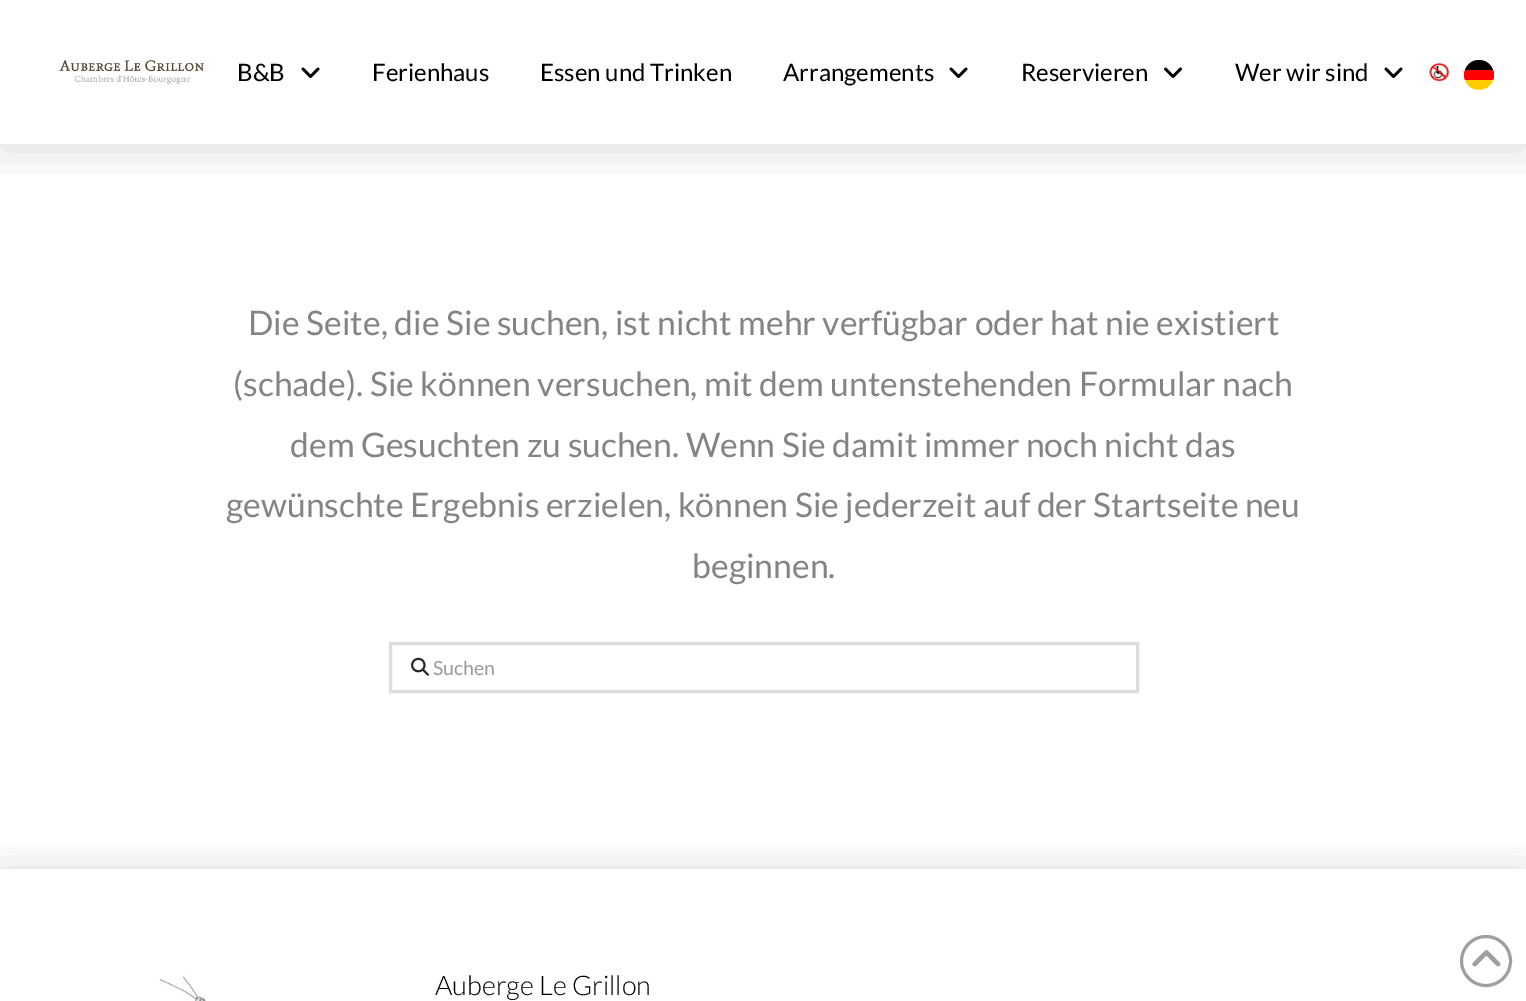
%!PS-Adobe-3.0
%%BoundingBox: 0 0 1526 1001
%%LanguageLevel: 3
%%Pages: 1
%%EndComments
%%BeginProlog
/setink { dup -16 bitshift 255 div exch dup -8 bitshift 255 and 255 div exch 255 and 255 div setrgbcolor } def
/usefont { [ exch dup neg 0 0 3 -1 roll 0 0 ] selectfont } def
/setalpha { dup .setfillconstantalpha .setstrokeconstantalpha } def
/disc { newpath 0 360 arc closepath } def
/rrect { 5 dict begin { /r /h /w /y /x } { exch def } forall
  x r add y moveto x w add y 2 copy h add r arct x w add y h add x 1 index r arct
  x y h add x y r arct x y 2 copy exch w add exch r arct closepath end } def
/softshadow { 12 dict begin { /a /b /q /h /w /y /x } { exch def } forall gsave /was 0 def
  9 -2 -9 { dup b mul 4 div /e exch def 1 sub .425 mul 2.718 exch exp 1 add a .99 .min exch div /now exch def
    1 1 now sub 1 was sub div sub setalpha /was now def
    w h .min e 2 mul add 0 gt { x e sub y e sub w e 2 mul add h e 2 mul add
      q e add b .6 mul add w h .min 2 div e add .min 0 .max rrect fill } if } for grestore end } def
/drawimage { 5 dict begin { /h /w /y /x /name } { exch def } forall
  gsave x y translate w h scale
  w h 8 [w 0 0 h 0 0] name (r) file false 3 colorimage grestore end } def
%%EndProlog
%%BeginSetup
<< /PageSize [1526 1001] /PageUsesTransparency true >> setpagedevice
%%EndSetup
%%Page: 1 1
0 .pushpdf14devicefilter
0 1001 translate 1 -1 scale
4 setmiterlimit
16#FFFFFF setink
0 0 1526 1001 rectfill
gsave
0 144 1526 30 rectclip
16#000000 setink
0 3 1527 144 0 24 0.15 softshadow
grestore
(img1.raw) 59 58 153 26 drawimage
/Lato-Regular 24 usefont
16#000000 setink
237 81 moveto (B&B) show
(img2.raw) 301 67 19 11 drawimage
[
    [(Ferienhaus) 372 81]
    [(Essen und Trinken) 540 81]
    [(Arrangements) 783 81]
] { aload pop moveto show } forall
(img2.raw) 949 67 19 11 drawimage
1021 81 moveto (Reservieren) show
(img3.raw) 1164 67 18 11 drawimage
1235 81 moveto (Wer wir sind) show
(img2.raw) 1384 67 19 11 drawimage
(img4.raw) 1429 63 20 18 drawimage
16#000001 setink
1479 60 moveto 1485.5 60 1491 64 1493 70 curveto 1465 70 lineto 1467 64 1472.5 60 1479 60 curveto closepath fill
gsave
1464 60 30 30 rectclip
16#FF0000 setink
1465 80 moveto 1463.5 77 1463.5 73 1465 70 curveto 1493 70 lineto 1494.5 73 1494.5 77 1493 80 curveto closepath fill
grestore
16#FFCC00 setink
1493 80 moveto 1488.5 93 1469.5 93 1465 80 curveto closepath fill
/Lato-Regular 33.75 usefont
16#848484 setink
[
    [(Die Seite, die Sie suchen, ist nicht mehr verfügbar oder hat nie existiert) 248 335]
    [(\(schade\). Sie können versuchen, mit dem untenstehenden Formular nach) 233 396]
    [(dem Gesuchten zu suchen. Wenn Sie damit immer noch nicht das) 290 457]
    [(gewünschte Ergebnis erzielen, können Sie jederzeit auf der Startseite neu) 226 517]
    [(beginnen.) 692 578]
] { aload pop moveto show } forall
16#DDDDDD setink
3 setlinewidth
390.5 643.5 747 48 rectstroke
(img5.raw) 411 657 18 19 drawimage
/Lato-Regular 19.5 usefont
16#999999 setink
433 675 moveto (Suchen) show
gsave
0 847 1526 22 rectclip
16#000000 setink
0 872 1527 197 0 22.5 0.15 softshadow
grestore
(img6.raw) 158 974 48 27 drawimage
/Lato-Light 27 usefont
16#000000 setink
435 995 moveto (Auberge Le Grillon) show
16#9F9F9F setink
1486 961 24.5 disc stroke
(img7.raw) 1472 950 29 17 drawimage
.poppdf14devicefilter showpage
%%EOF
